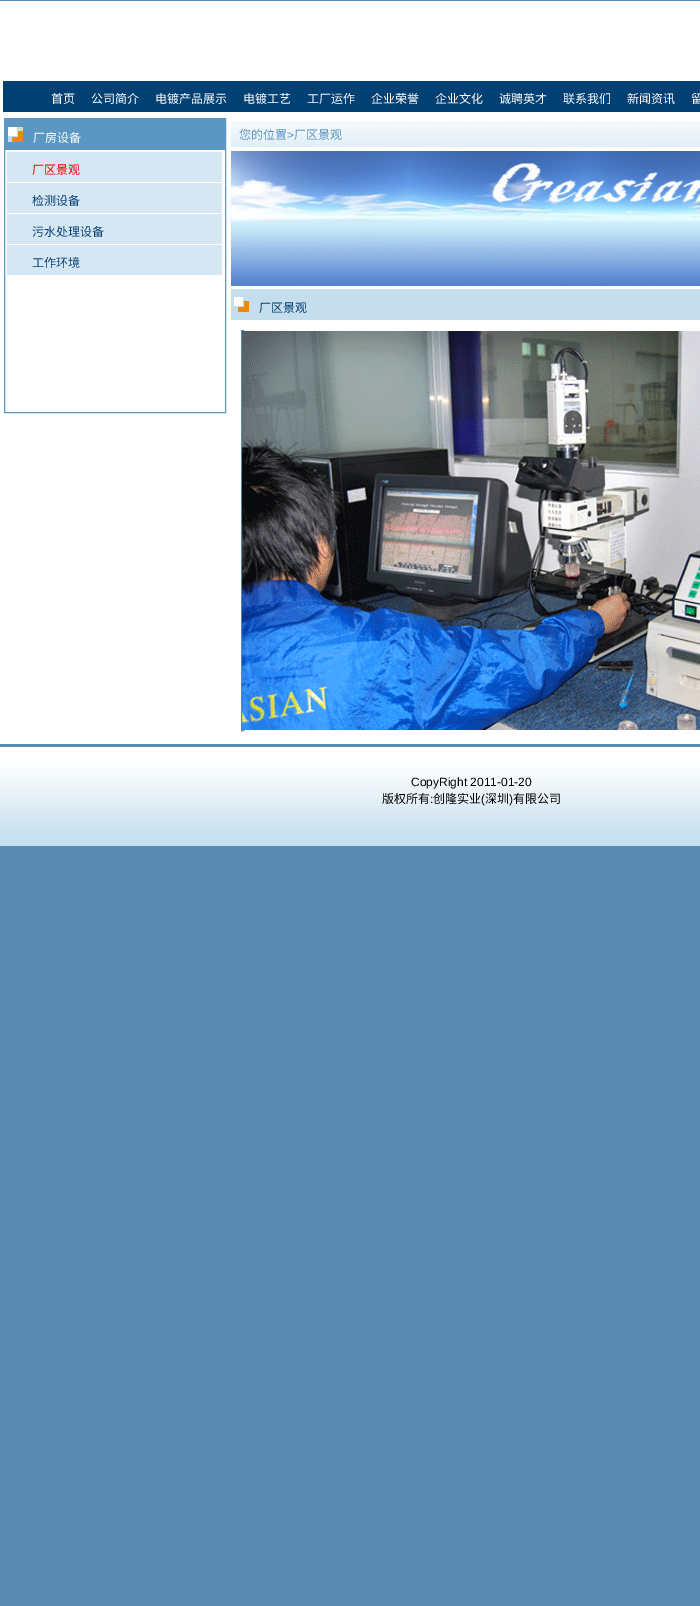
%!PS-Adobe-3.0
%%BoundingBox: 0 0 700 1606
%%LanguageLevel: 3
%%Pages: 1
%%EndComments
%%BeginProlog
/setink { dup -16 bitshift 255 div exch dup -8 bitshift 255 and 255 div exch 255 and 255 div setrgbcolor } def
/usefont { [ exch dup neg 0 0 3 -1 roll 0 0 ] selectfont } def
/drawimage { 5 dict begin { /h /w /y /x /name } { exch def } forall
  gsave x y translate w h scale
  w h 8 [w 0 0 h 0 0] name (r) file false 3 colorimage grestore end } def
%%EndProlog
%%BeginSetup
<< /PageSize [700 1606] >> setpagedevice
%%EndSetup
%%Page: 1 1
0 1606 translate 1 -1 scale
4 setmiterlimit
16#598BB0 setink
0 0 700 1606 rectfill
16#FFFFFF setink
0 1 700 743 rectfill
16#034174 setink
3 81 697 31 rectfill
/NotoSansCJKSC-Regular 12 usefont
16#FFFFFF setink
[
    [(首页) 51 103]
    [(公司简介) 91 103]
    [(电镀产品展示) 155 103]
    [(电镀工艺) 243 103]
    [(工厂运作) 307 103]
    [(企业荣誉) 371 103]
    [(企业文化) 435 103]
    [(诚聘英才) 499 103]
    [(联系我们) 563 103]
    [(新闻资讯) 627 103]
    [(留) 691 103]
] { aload pop moveto show } forall
16#5C97C1 setink
4.5 118.5 221 294 rectstroke
5 119 220 31 rectfill
(img1.raw) 8 127 15 15 drawimage
16#FFFFFF setink
33 142 moveto (厂房设备) show
16#D5E7F3 setink
7 152 215 30 rectfill
16#FF0000 setink
32 174 moveto (厂区景观) show
16#D5E7F3 setink
7 183 215 30 rectfill
16#044074 setink
32 205 moveto (检测设备) show
16#D5E7F3 setink
7 214 215 30 rectfill
16#044074 setink
32 236 moveto (污水处理设备) show
16#D5E7F3 setink
7 245 215 30 rectfill
16#044074 setink
32 267 moveto (工作环境) show
(img2.raw) 231 121 469 26 drawimage
16#5D97BF setink
239 139 moveto (您的位置) show
/LiberationSans-Regular 12 usefont
287 139 moveto (>) show
/NotoSansCJKSC-Regular 12 usefont
294 139 moveto (厂区景观) show
(img3.raw) 231 151 469 135 drawimage
16#C4DEED setink
231 289 469 31 rectfill
(img1.raw) 234 297 15 15 drawimage
16#044074 setink
259 312 moveto (厂区景观) show
16#598BB0 setink
241.5 330.5 2 400 rectstroke
(img4.raw) 242 331 458 399 drawimage
(img5.raw) 0 747 700 99 drawimage
/LiberationSans-Regular 12 usefont
16#000000 setink
411 786 moveto (CopyRight 2011-01-20) show
/NotoSansCJKSC-Regular 12 usefont
382 803 moveto (版权所有) show
/LiberationSans-Regular 12 usefont
430 803 moveto (:) show
/NotoSansCJKSC-Regular 12 usefont
433 803 moveto (创隆实业) show
/LiberationSans-Regular 12 usefont
481 803 moveto (\() show
/NotoSansCJKSC-Regular 12 usefont
485 803 moveto (深圳) show
/LiberationSans-Regular 12 usefont
509 803 moveto (\)) show
/NotoSansCJKSC-Regular 12 usefont
513 803 moveto (有限公司) show
showpage
%%EOF
